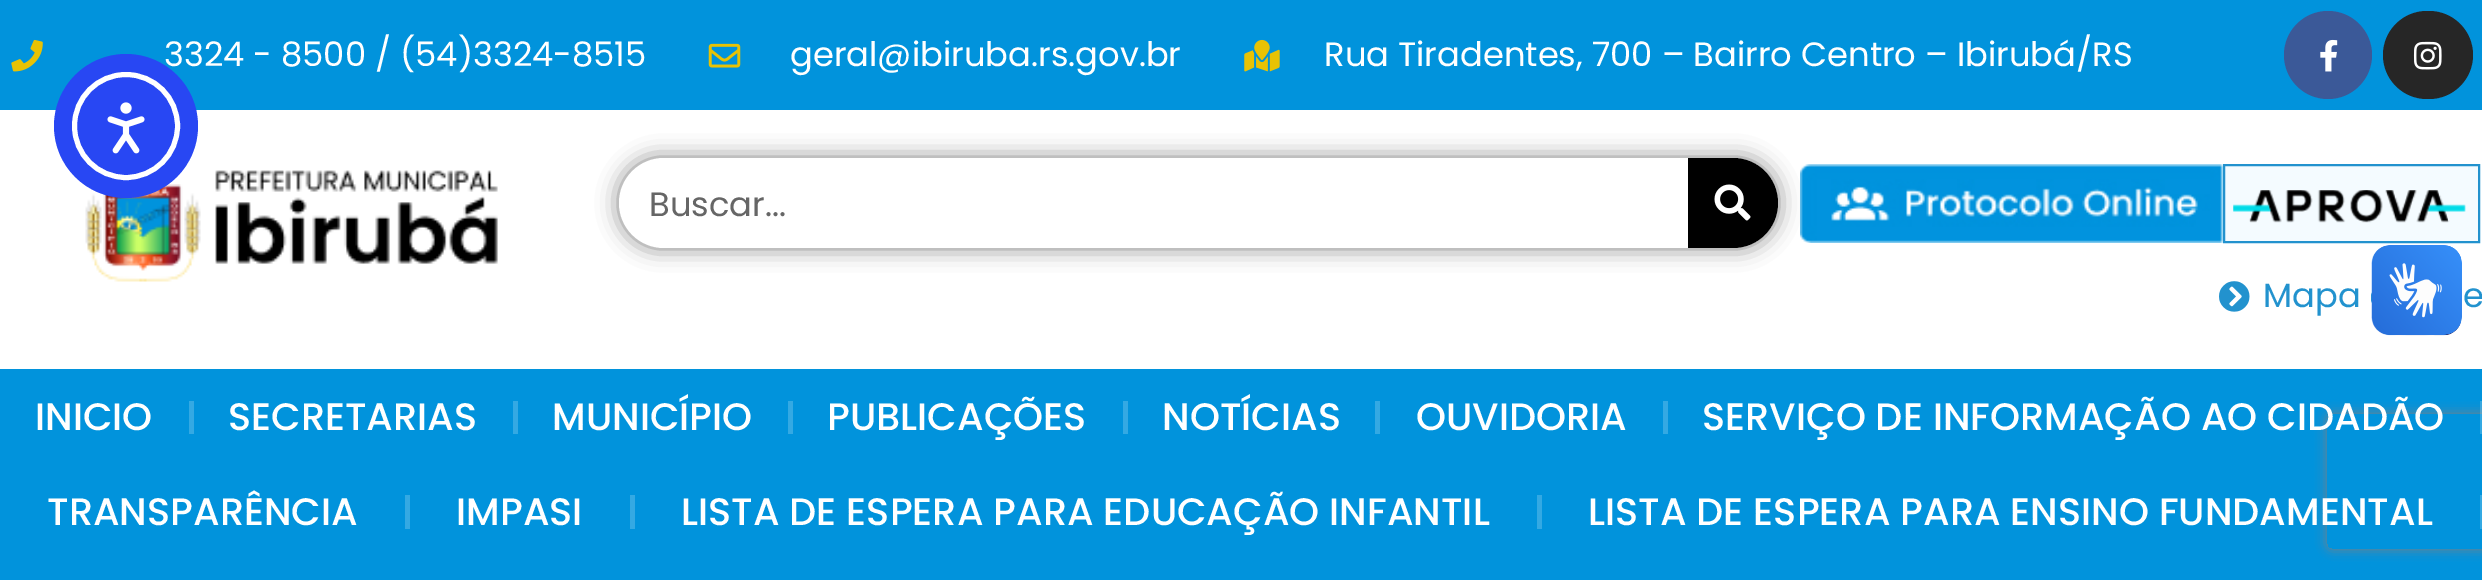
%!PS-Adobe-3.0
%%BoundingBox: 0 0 2482 580
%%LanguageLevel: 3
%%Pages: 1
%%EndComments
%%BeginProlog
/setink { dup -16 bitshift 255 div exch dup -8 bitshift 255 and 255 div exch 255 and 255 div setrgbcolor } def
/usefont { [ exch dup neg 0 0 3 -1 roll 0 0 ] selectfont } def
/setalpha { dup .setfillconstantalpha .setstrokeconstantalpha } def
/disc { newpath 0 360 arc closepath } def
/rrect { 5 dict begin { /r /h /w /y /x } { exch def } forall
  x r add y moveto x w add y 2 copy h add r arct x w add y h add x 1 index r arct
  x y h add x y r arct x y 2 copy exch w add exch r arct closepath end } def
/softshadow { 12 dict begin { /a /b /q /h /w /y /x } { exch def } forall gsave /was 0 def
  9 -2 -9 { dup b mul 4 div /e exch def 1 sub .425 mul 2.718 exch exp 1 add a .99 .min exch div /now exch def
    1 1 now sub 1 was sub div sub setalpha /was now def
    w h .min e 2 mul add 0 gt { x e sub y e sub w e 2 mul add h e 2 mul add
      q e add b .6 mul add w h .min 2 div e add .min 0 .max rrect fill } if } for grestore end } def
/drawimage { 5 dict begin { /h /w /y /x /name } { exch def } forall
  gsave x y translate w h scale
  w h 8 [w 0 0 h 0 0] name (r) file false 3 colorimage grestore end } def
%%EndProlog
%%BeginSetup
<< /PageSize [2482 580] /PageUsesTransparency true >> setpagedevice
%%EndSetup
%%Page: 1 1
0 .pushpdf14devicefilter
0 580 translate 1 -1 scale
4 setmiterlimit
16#FFFFFF setink
0 0 2482 580 rectfill
16#0193DC setink
0 0 2482 110 rectfill
(img1.raw) 11 39 32 33 drawimage
/Poppins-Regular 33.75 usefont
16#FFFFFF setink
164 66 moveto (3324 - 8500 / \(54\)3324-8515) show
(img2.raw) 708 43 33 25 drawimage
790 66 moveto (geral@ibiruba.rs.gov.br) show
(img3.raw) 1244 39 36 33 drawimage
1324 66 moveto (Rua Tiradentes, 700 – Bairro Centro – Ibirubá/RS) show
16#3B5998 setink
2328 55 44 disc fill
(img4.raw) 2320 39 18 33 drawimage
16#262626 setink
2383 11 90 88 44 rrect fill
(img5.raw) 2413 41 29 29 drawimage
(img6.raw) 85 153 413 129 drawimage
16#000000 setink
619 158 1159 90 45 11 0.5 softshadow
16#FFFFFF setink
619 158 1159 90 45 rrect fill
16#666666 setink
649 216 moveto (Buscar...) show
16#000000 setink
1688 158 moveto 1733 158 lineto 1758 158 1778 178 1778 203 curveto 1778 228 1758 248 1733 248 curveto 1688 248 lineto closepath fill
(img7.raw) 1714 184 37 37 drawimage
(img8.raw) 1800 164 423 79 drawimage
16#F4FBFF setink
2224 165 moveto 2479 165 lineto 2479 242 lineto 2224 242 lineto closepath gsave fill grestore
16#2292CE setink
2 setlinewidth
stroke
(img9.raw) 2233 190 233 33 drawimage
(img10.raw) 2219 281 31 31 drawimage
2263 307 moveto (Mapa) show
2463 307 moveto (e) show
16#0193DC setink
0 369 2482 211 rectfill
/Poppins-Medium 38.25 usefont
16#FFFFFF setink
35 430 moveto (INICIO) show
16#34A9E3 setink
189 401 5 33 rectfill
16#FFFFFF setink
228 430 moveto (SECRETARIAS) show
16#34A9E3 setink
513 401 5 33 rectfill
16#FFFFFF setink
552 430 moveto (MUNICÍPIO) show
16#34A9E3 setink
788 401 5 33 rectfill
16#FFFFFF setink
827 430 moveto (PUBLICAÇÕES) show
16#34A9E3 setink
1123 401 5 33 rectfill
16#FFFFFF setink
1162 430 moveto (NOTÍCIAS) show
16#34A9E3 setink
1375 401 5 33 rectfill
16#FFFFFF setink
1416 430 moveto (OUVIDORIA) show
16#34A9E3 setink
1663 401 5 33 rectfill
gsave
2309 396 moveto 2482 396 lineto 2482 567 lineto 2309 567 lineto closepath 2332 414 moveto 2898 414 lineto 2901 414 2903 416 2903 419 curveto 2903 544 lineto 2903 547 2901 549 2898 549 curveto 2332 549 lineto 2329 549 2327 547 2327 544 curveto 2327 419 lineto 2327 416 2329 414 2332 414 curveto closepath eoclip newpath
16#808080 setink
2327 414 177 135 5 5.5 1 softshadow
grestore
16#FFFFFF setink
1702 430 moveto (SERVIÇO DE INFORMAÇÃO AO CIDADÃO) show
0.2 setalpha
2480 401 2 33 rectfill
1 setalpha
47 525 moveto (TRANSPARÊNCIA) show
16#34A9E3 setink
405 495 5 34 rectfill
16#FFFFFF setink
456 525 moveto (IMPASI) show
16#34A9E3 setink
630 495 5 34 rectfill
16#FFFFFF setink
681 525 moveto (LISTA DE ESPERA PARA EDUCAÇÃO INFANTIL) show
16#34A9E3 setink
1537 495 5 34 rectfill
16#FFFFFF setink
1588 525 moveto (LISTA DE ESPERA PARA ENSINO FUNDAMENTAL) show
16#34A9E3 setink
2480 495 2 34 rectfill
16#2847F3 setink
126 126 72 disc fill
16#FFFFFF setink
5 setlinewidth
126 126 51.5 disc stroke
(img11.raw) 107 102 38 52 drawimage
(img12.raw) 2371 245 91 91 drawimage
(img13.raw) 2372 245 90 90 drawimage
.poppdf14devicefilter showpage
%%EOF
